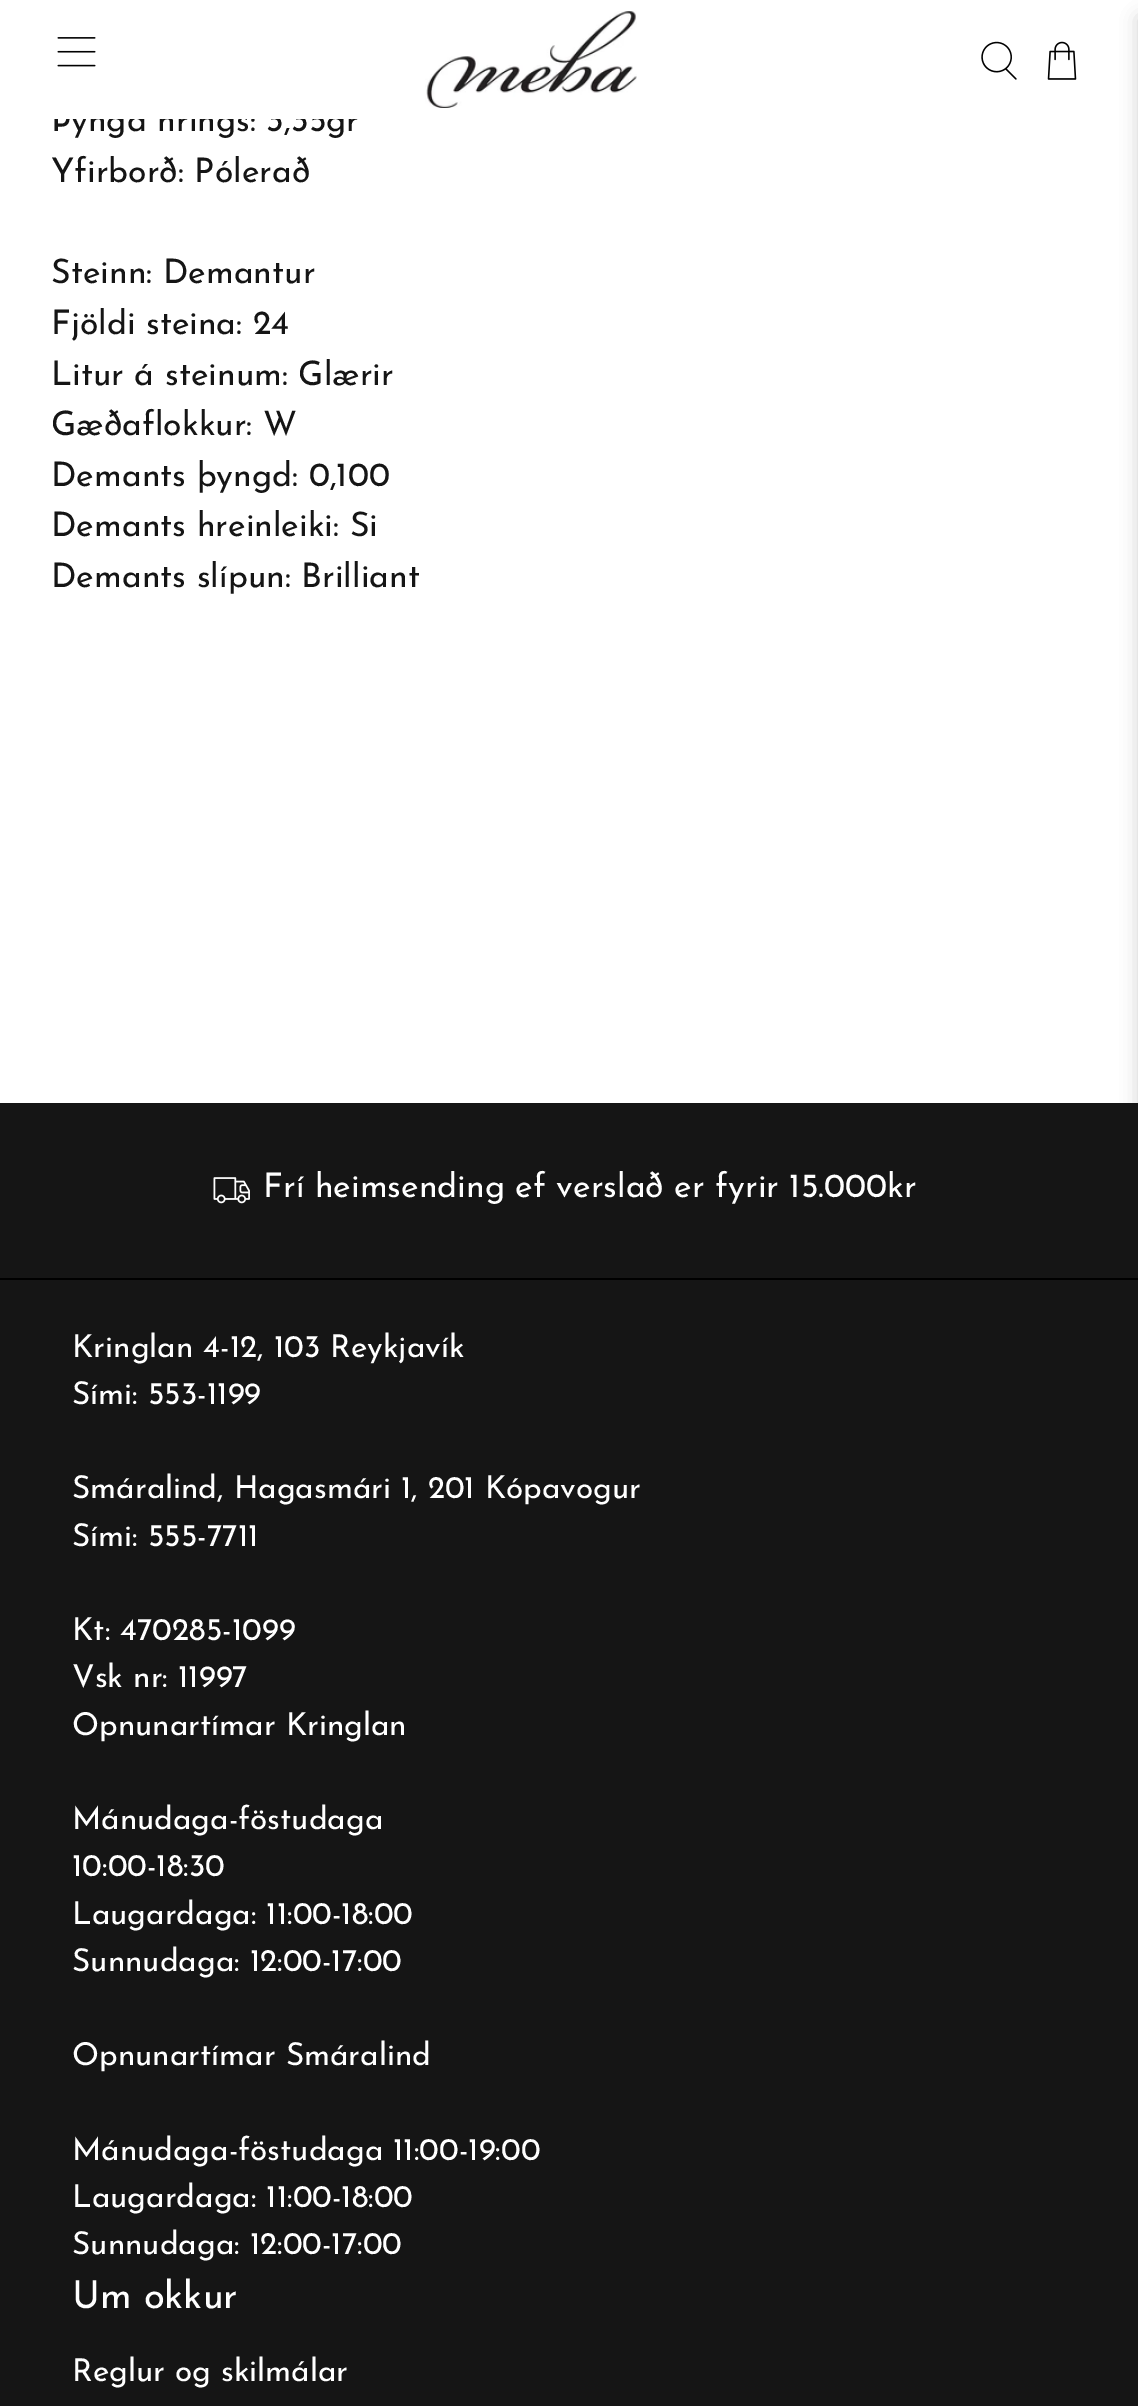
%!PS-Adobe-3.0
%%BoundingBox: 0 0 1138 2406
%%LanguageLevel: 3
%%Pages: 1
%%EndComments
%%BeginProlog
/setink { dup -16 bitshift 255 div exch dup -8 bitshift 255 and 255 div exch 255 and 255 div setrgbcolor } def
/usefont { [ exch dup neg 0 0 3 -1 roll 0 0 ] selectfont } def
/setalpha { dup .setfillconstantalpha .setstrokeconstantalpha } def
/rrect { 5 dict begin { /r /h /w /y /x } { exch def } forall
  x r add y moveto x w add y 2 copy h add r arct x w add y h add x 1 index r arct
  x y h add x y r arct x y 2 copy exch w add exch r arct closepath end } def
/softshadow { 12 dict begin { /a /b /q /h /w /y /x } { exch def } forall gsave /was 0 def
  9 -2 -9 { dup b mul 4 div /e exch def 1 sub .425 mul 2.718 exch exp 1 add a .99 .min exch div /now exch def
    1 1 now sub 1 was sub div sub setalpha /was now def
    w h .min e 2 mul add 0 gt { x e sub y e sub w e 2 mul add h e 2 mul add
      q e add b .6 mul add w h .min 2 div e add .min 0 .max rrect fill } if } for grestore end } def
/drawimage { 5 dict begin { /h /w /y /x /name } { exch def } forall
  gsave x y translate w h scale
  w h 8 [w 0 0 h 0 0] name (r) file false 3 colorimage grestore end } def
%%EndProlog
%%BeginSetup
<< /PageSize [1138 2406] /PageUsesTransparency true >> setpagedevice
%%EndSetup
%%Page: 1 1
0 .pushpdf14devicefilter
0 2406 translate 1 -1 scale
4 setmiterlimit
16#FFFFFF setink
0 0 1138 2406 rectfill
/JosefinSans-Regular 33.75 usefont
16#151515 setink
51 131 moveto (Þyngd hrings: 3,35gr) show
16#FFFFFF setink
54 104 304 15 rectfill
(img1.raw) 57 37 39 30 drawimage
(img2.raw) 425 11 212 97 drawimage
(img3.raw) 981 41 36 39 drawimage
(img4.raw) 1047 41 30 39 drawimage
[
    [0 1103 1138 175 16#151515]
    [0 1280 1138 1126 16#151515]
    [0 1278 1138 2 16#000000]
] { aload pop setink rectfill } forall
16#0A0A0A setink
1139 18 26 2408 0 9 0.1 softshadow
16#151515 setink
[
    [(Yfirborð: Pólerað) 51 182]
    [(Steinn: Demantur) 51 283]
    [(Fjöldi steina: 24) 51 334]
    [(Litur á steinum: Glærir) 51 385]
    [(Gæðaflokkur: W) 51 435]
    [(Demants þyngd: 0,100) 51 486]
    [(Demants hreinleiki: Si) 51 536]
    [(Demants slípun: Brilliant) 51 587]
] { aload pop moveto show } forall
16#0A0A0A setink
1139 18 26 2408 0 9 0.1 softshadow
(img5.raw) 213 1177 37 27 drawimage
16#FFFFFF setink
263 1197 moveto (Frí heimsending ef verslað er fyrir 15.000kr) show
/JosefinSans-Regular 31.5 usefont
[
    [(Kringlan 4-12, 103 Reykjavík) 72 1357]
    [(Sími: 553-1199) 72 1404]
    [(Smáralind, Hagasmári 1, 201 Kópavogur) 72 1498]
    [(Sími: 555-7711) 72 1546]
    [(Kt: 470285-1099) 72 1640]
    [(Vsk nr: 11997) 72 1687]
    [(Opnunartímar Kringlan) 72 1735]
    [(Mánudaga-föstudaga) 72 1829]
    [(10:00-18:30) 72 1876]
    [(Laugardaga: 11:00-18:00) 72 1924]
    [(Sunnudaga: 12:00-17:00) 72 1971]
    [(Opnunartímar Smáralind) 72 2065]
    [(Mánudaga-föstudaga 11:00-19:00) 72 2160]
    [(Laugardaga: 11:00-18:00) 72 2207]
    [(Sunnudaga: 12:00-17:00) 72 2254]
] { aload pop moveto show } forall
/JosefinSans-Regular 38.25 usefont
72 2308 moveto (Um okkur) show
/JosefinSans-Regular 31.5 usefont
72 2381 moveto (Reglur og skilmálar) show
.poppdf14devicefilter showpage
%%EOF
